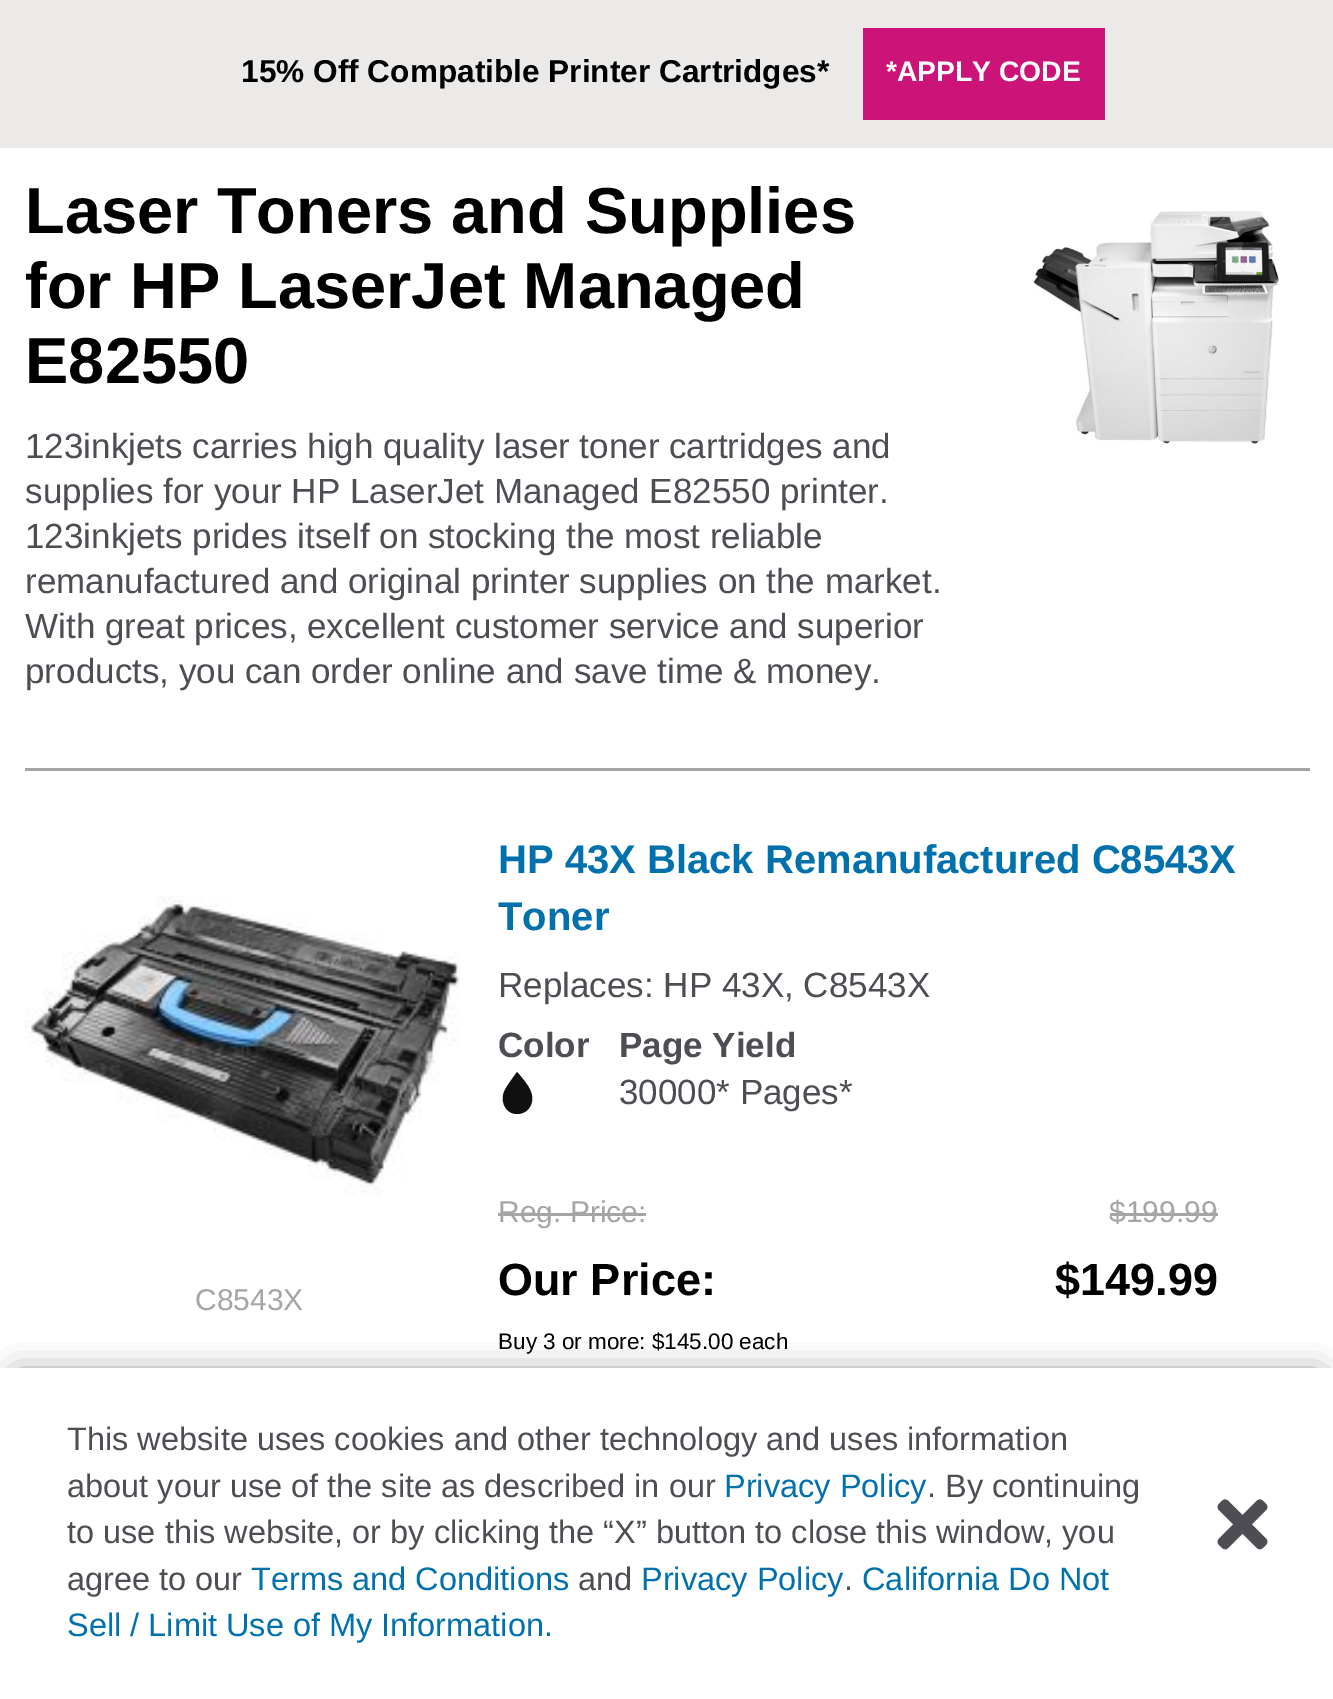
%!PS-Adobe-3.0
%%BoundingBox: 0 0 1333 1699
%%LanguageLevel: 3
%%Pages: 1
%%EndComments
%%BeginProlog
/setink { dup -16 bitshift 255 div exch dup -8 bitshift 255 and 255 div exch 255 and 255 div setrgbcolor } def
/usefont { [ exch dup neg 0 0 3 -1 roll 0 0 ] selectfont } def
/setalpha { dup .setfillconstantalpha .setstrokeconstantalpha } def
/rrect { 5 dict begin { /r /h /w /y /x } { exch def } forall
  x r add y moveto x w add y 2 copy h add r arct x w add y h add x 1 index r arct
  x y h add x y r arct x y 2 copy exch w add exch r arct closepath end } def
/softshadow { 12 dict begin { /a /b /q /h /w /y /x } { exch def } forall gsave /was 0 def
  9 -2 -9 { dup b mul 4 div /e exch def 1 sub .425 mul 2.718 exch exp 1 add a .99 .min exch div /now exch def
    1 1 now sub 1 was sub div sub setalpha /was now def
    w h .min e 2 mul add 0 gt { x e sub y e sub w e 2 mul add h e 2 mul add
      q e add b .6 mul add w h .min 2 div e add .min 0 .max rrect fill } if } for grestore end } def
/drawimage { 5 dict begin { /h /w /y /x /name } { exch def } forall
  gsave x y translate w h scale
  w h 8 [w 0 0 h 0 0] name (r) file false 3 colorimage grestore end } def
%%EndProlog
%%BeginSetup
<< /PageSize [1333 1699] /PageUsesTransparency true >> setpagedevice
%%EndSetup
%%Page: 1 1
0 .pushpdf14devicefilter
0 1699 translate 1 -1 scale
4 setmiterlimit
16#FFFFFF setink
0 0 1333 1699 rectfill
16#EBEAE9 setink
0 0 1333 148 rectfill
/LiberationSans-Bold 31.6 usefont
16#000000 setink
241 82 moveto (15% Off Compatible Printer Cartridges*) show
16#CB1378 setink
863 28 242 92 rectfill
/LiberationSans-Bold 28.25 usefont
16#FFFFFF setink
886 81 moveto (*APPLY CODE) show
/LiberationSans-Bold 65 usefont
16#000000 setink
[
    [(Laser Toners and Supplies) 25 233]
    [(for HP LaserJet Managed) 25 308]
    [(E82550) 25 383]
] { aload pop moveto show } forall
/LiberationSans-Regular 35 usefont
16#4E4D53 setink
[
    [(123inkjets carries high quality laser toner cartridges and) 25 458]
    [(supplies for your HP LaserJet Managed E82550 printer.) 25 503]
    [(123inkjets prides itself on stocking the most reliable) 25 548]
    [(remanufactured and original printer supplies on the market.) 25 593]
    [(With great prices, excellent customer service and superior) 25 638]
    [(products, you can order online and save time & money.) 25 683]
] { aload pop moveto show } forall
(img1.raw) 1033 211 246 234 drawimage
16#A5A5A5 setink
25 768 1285 3 rectfill
(img2.raw) 25 896 435 301 drawimage
/LiberationSans-Regular 30 usefont
195 1310 moveto (C8543X) show
/LiberationSans-Bold 40 usefont
16#0171AD setink
498 873 moveto (HP 43X Black Remanufactured C8543X) show
498 930 moveto (Toner) show
/LiberationSans-Regular 35 usefont
16#4E4D53 setink
498 997 moveto (Replaces: HP 43X, C8543X) show
/LiberationSans-Bold 35 usefont
498 1057 moveto (Color) show
16#101010 setink
517 1114 moveto 506 1114 500 1102 504 1092 curveto 507 1085 513 1078 517 1072 curveto 522 1078 528 1084 531 1092 curveto 535 1102 529 1114 517 1114 curveto closepath fill
16#4E4D53 setink
619 1057 moveto (Page Yield) show
/LiberationSans-Regular 35 usefont
619 1104 moveto (30000* Pages*) show
/LiberationSans-Regular 30 usefont
16#A5A5A5 setink
498 1222 moveto (Reg. Price:) show
498 1213 148 3 rectfill
1109 1222 moveto ($199.99) show
1110 1213 108 3 rectfill
/LiberationSans-Bold 45 usefont
16#000000 setink
498 1295 moveto (Our Price:) show
1055 1295 moveto ($149.99) show
/LiberationSans-Regular 22.5 usefont
498 1349 moveto (Buy 3 or more: $145.00 each) show
18 1378 1300 297 0 16 0.64 softshadow
16#FFFFFF setink
0 1368 1333 331 rectfill
/LiberationSans-Regular 32.5 usefont
16#4E4D53 setink
67 1450 moveto (This website uses cookies and other technology and uses information) show
67 1497 moveto (about your use of the site as described in our) show
16#0171AD setink
724 1497 moveto (Privacy Policy) show
16#4E4D53 setink
[
    [(. By continuing) 927 1497]
    [(to use this website, or by clicking the “X” button to close this window, you) 67 1543]
    [(agree to our) 67 1590]
] { aload pop moveto show } forall
16#0171AD setink
251 1590 moveto (Terms and Conditions) show
16#4E4D53 setink
578 1590 moveto (and) show
16#0171AD setink
641 1590 moveto (Privacy Policy) show
16#4E4D53 setink
844 1590 moveto (.) show
16#0171AD setink
862 1590 moveto (California Do Not) show
67 1636 moveto (Sell / Limit Use of My Information.) show
(img3.raw) 1217 1499 51 51 drawimage
.poppdf14devicefilter showpage
%%EOF
